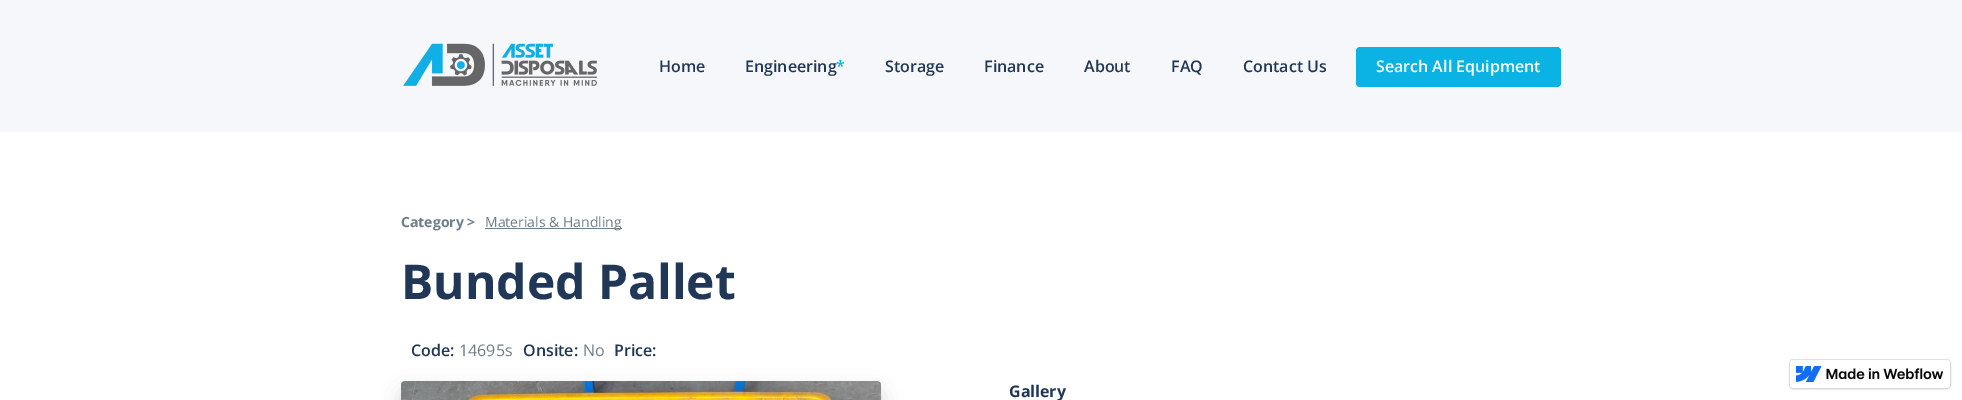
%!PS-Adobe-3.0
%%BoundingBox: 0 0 1962 400
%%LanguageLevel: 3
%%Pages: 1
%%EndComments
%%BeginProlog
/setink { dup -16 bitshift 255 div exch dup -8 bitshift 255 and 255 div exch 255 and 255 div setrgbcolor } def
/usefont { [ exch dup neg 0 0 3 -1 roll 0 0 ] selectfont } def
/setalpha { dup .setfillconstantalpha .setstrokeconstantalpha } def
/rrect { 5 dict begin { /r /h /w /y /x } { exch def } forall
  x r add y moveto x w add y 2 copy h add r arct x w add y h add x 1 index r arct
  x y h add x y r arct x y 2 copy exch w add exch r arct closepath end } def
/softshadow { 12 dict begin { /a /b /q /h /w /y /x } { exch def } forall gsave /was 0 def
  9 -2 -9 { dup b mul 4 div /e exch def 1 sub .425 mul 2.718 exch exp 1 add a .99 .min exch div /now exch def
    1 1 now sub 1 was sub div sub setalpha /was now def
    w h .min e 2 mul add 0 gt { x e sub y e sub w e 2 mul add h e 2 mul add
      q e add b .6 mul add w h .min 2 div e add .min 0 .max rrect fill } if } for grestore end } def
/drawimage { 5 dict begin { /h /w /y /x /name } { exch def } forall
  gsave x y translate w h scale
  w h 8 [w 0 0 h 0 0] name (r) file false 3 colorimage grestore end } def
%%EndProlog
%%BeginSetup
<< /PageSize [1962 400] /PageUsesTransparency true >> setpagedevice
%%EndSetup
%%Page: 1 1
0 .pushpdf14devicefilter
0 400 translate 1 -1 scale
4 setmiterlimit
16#FFFFFF setink
0 0 1962 400 rectfill
16#F5F7FA setink
0 0 1962 132 rectfill
(img1.raw) 403 43 194 43 drawimage
/OpenSans-SemiBold 16 usefont
16#213757 setink
659 72 moveto (Home) show
745 72 moveto (Engineering) show
16#0AB3E4 setink
836 72 moveto (*) show
16#213757 setink
[
    [(Storage) 885 72]
    [(Finance) 984 72]
    [(About) 1084 72]
    [(FAQ) 1171 72]
    [(Contact Us) 1243 72]
] { aload pop moveto show } forall
16#0AB3E4 setink
1356 47 205 40 4 rrect fill
16#FFFFFF setink
1376 72 moveto (Search All Equipment) show
/OpenSans-Bold 14 usefont
16#6D7D8B setink
401 227 moveto (Category >) show
485 228 137 1 rectfill
/OpenSans-Regular 14 usefont
485 227 moveto (Materials & Handling) show
/OpenSans-Bold 48 usefont
16#213757 setink
401 299 moveto (Bunded Pallet) show
/OpenSans-SemiBold 16 usefont
411 356 moveto (Code:) show
/OpenSans-Regular 16 usefont
16#6D7D8B setink
459 356 moveto (14695s) show
/OpenSans-SemiBold 16 usefont
16#213757 setink
523 356 moveto (Onsite:) show
/OpenSans-Regular 16 usefont
16#6D7D8B setink
583 356 moveto (No) show
/OpenSans-SemiBold 16 usefont
16#213757 setink
614 356 moveto (Price:) show
16#000000 setink
401 391 480 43 4 10 0.15 softshadow
(img2.raw) 401 381 480 4 drawimage
(img3.raw) 401 381 480 19 drawimage
/OpenSans-Bold 16 usefont
16#213757 setink
1009 397 moveto (Gallery) show
16#000000 setink
1790 361 160 28 3 1.5 0.1 softshadow
0.1 setalpha
1789.5 359.5 161 29 3.5 rrect stroke
1 setalpha
16#FFFFFF setink
1790 360 160 28 3 rrect fill
(img4.raw) 1796 366 26 16 drawimage
(img5.raw) 1826 368 118 12 drawimage
.poppdf14devicefilter showpage
%%EOF
